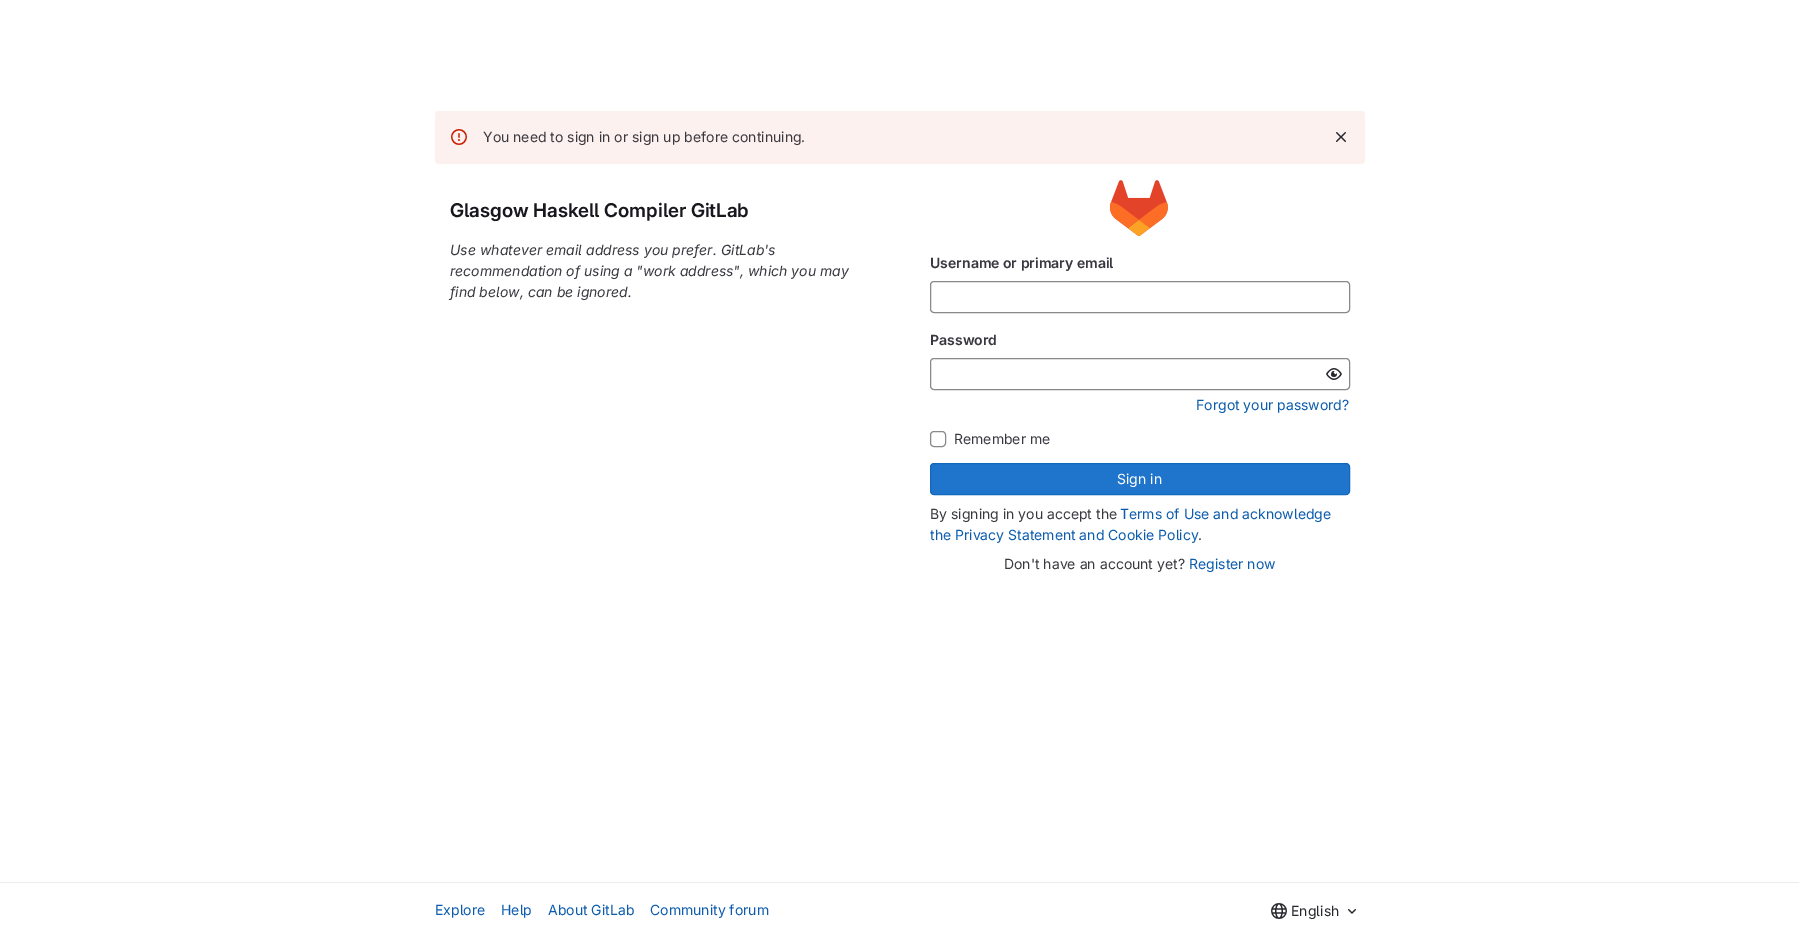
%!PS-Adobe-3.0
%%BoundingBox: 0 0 1799 939
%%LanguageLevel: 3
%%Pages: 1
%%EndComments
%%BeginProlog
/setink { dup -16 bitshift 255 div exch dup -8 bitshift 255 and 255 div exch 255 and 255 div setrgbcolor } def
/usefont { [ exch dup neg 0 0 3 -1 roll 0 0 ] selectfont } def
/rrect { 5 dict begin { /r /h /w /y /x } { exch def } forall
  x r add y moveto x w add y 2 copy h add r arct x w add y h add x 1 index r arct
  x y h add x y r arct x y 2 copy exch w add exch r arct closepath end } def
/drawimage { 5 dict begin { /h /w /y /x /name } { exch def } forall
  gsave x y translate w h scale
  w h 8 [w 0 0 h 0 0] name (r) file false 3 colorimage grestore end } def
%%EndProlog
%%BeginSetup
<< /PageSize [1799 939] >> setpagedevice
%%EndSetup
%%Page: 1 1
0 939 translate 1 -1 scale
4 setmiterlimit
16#FFFFFF setink
0 0 1799 939 rectfill
16#FCF1EF setink
435 111 930 53 4 rrect fill
(img1.raw) 451 129 16 16 drawimage
/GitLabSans-Regular 14 usefont
16#3A383F setink
483 142 moveto (You need to sign in or sign up before continuing.) show
(img2.raw) 1336 132 10 10 drawimage
/GitLabSans-SemiBold 19 usefont
16#18171D setink
450 217 moveto (Glasgow Haskell Compiler GitLab) show
/GitLabSans-Italic 14 usefont
16#3A383F setink
[
    [(Use whatever email address you prefer. GitLab's) 450 255]
    [(recommendation of using a "work address", which you may) 450 276]
    [(find below, can be ignored.) 450 297]
] { aload pop moveto show } forall
(img3.raw) 1110 180 58 56 drawimage
/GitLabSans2-SemiBold 14 usefont
930 268 moveto (Username or primary email) show
16#89888D setink
930.5 281.5 419 31 3.5 rrect stroke
16#3A383F setink
930 345 moveto (Password) show
16#89888D setink
930.5 358.5 419 31 3.5 rrect stroke
(img4.raw) 1326 368 16 12 drawimage
/GitLabSans-Regular 14 usefont
16#0B5CAD setink
1196 410 moveto (Forgot your password?) show
16#89888D setink
930.5 431.5 15 15 3.5 rrect stroke
16#3A383F setink
954 444 moveto (Remember me) show
16#1F75CB setink
930.5 463.5 419 31 3.5 rrect gsave fill grestore
16#1068BF setink
stroke
16#FFFFFF setink
1117 484 moveto (Sign in) show
16#3A383F setink
930 519 moveto (By signing in you accept the) show
16#0B5CAD setink
1120 519 moveto (Terms of Use and acknowledge) show
930 540 moveto (the Privacy Statement and Cookie Policy) show
16#3A383F setink
1198 540 moveto (.) show
1004 569 moveto (Don't have an account yet?) show
16#0B5CAD setink
1189 569 moveto (Register now) show
16#ECECEF setink
0 882 1799 1 rectfill
16#0B5CAD setink
[
    [(Explore) 435 915]
    [(Help) 501 915]
    [(About GitLab) 548 915]
    [(Community forum) 650 915]
] { aload pop moveto show } forall
(img5.raw) 1271 903 16 16 drawimage
16#28272D setink
1291 916 moveto (English) show
(img6.raw) 1348 909 8 5 drawimage
showpage
%%EOF
